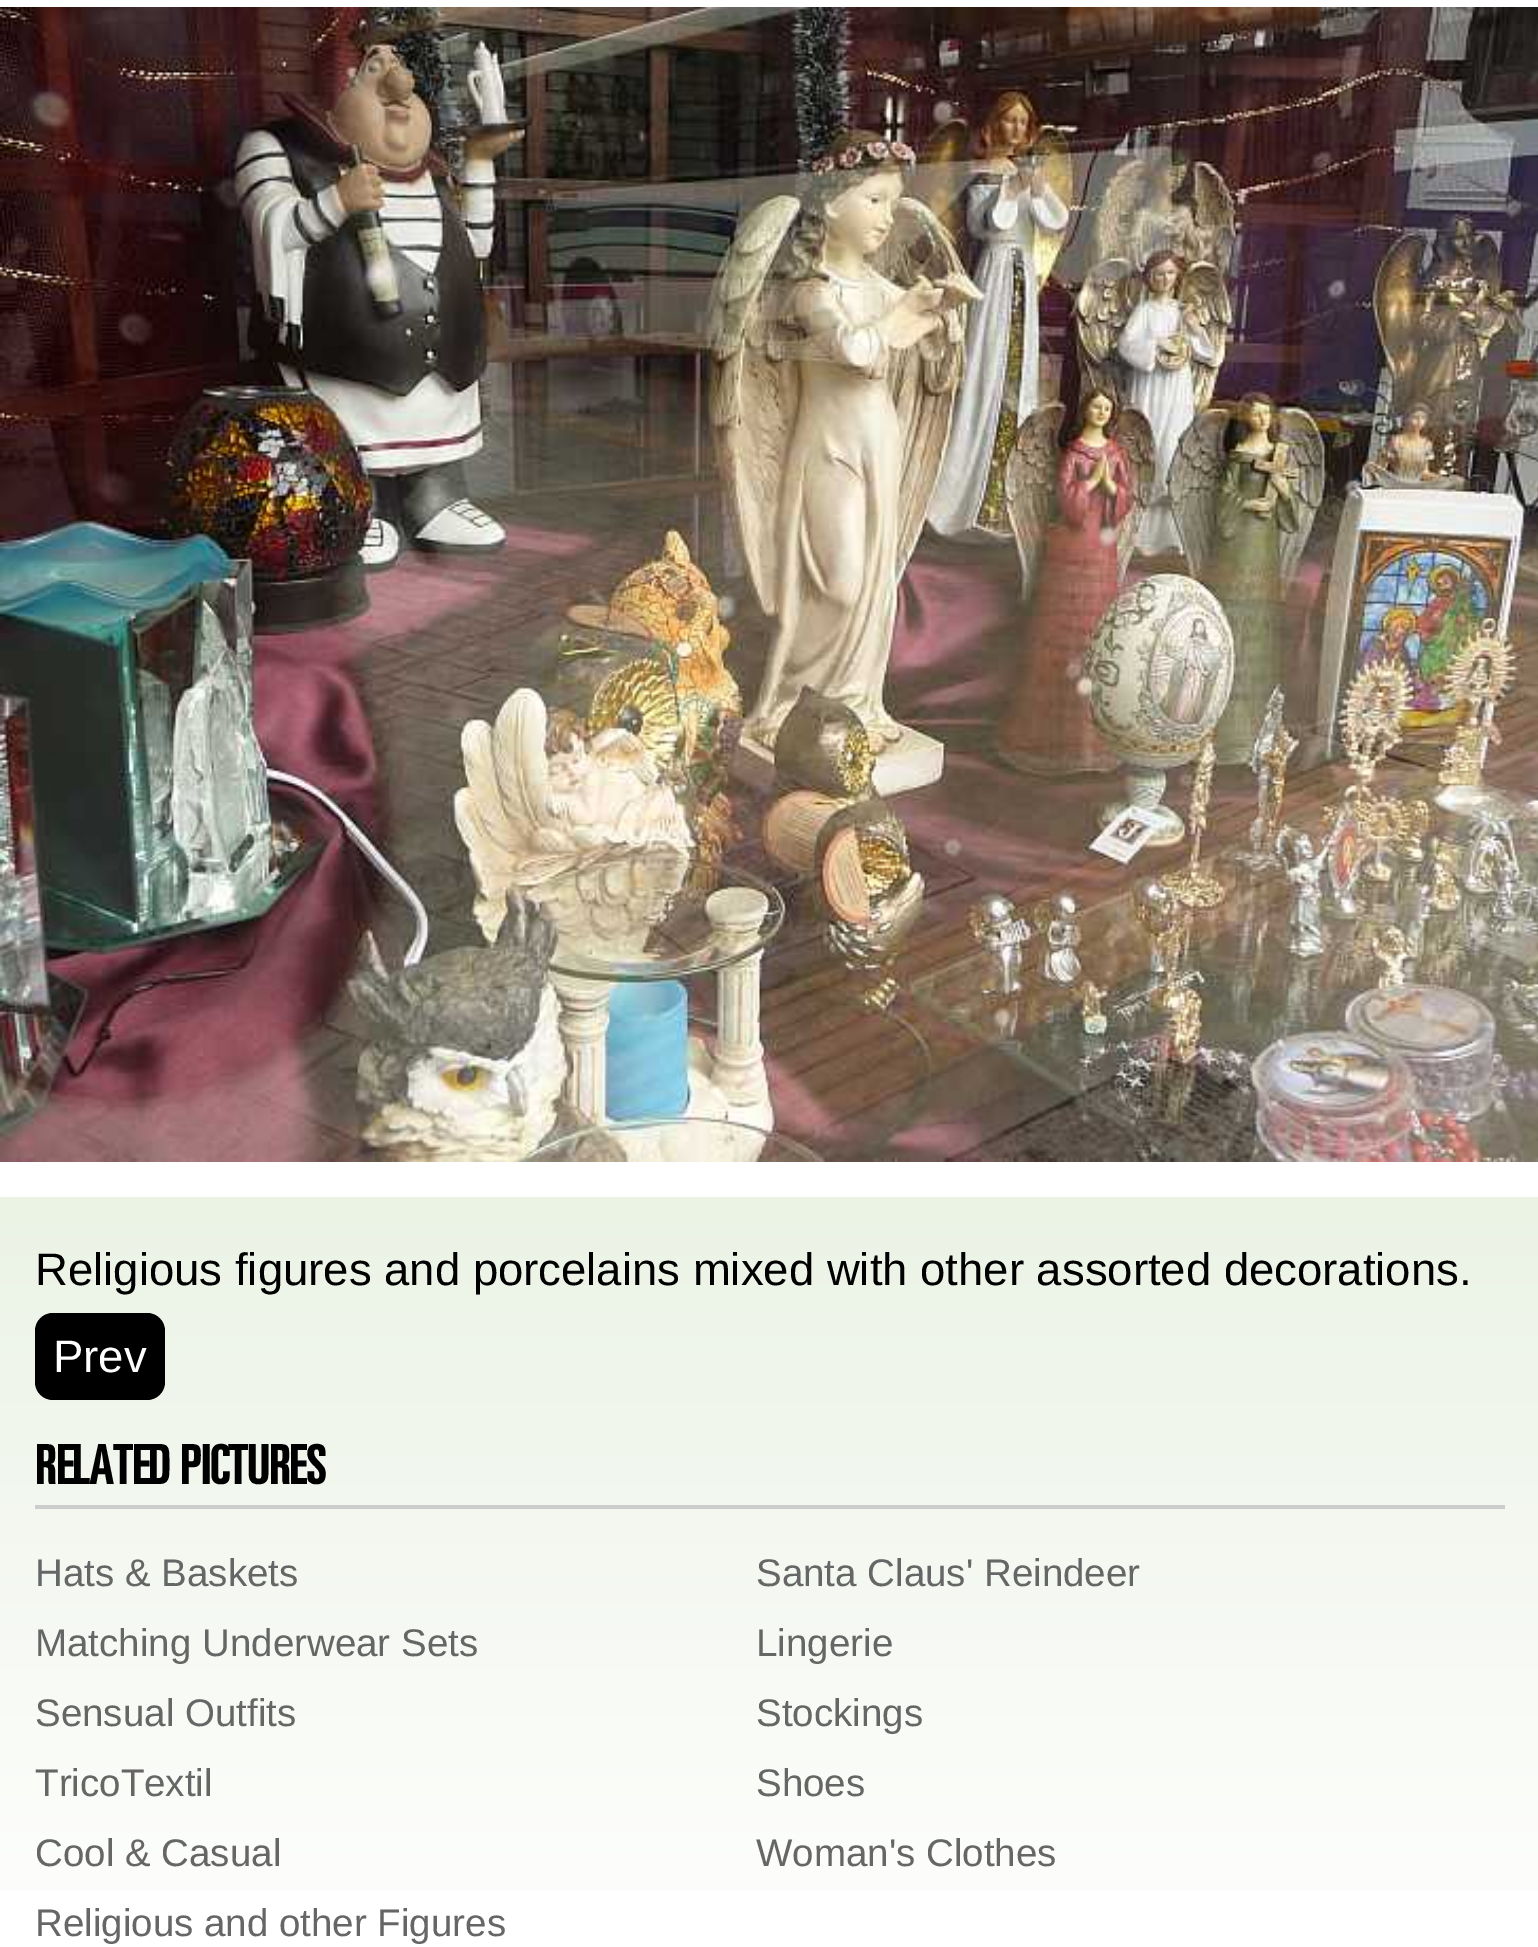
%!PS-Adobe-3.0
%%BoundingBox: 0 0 1538 1947
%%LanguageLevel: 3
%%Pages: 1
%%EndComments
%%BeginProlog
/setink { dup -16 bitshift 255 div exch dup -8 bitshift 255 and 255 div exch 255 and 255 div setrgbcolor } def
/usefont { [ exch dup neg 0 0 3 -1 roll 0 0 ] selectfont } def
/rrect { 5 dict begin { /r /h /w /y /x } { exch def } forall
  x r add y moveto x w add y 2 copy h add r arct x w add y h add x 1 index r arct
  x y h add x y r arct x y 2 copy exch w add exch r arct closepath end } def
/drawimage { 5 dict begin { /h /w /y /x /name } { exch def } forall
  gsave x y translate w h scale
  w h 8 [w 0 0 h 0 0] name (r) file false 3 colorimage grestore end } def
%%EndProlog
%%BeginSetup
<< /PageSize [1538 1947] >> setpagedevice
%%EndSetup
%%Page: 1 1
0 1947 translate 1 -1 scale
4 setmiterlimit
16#FFFFFF setink
0 0 1538 1947 rectfill
gsave 0 1197 moveto 1538 1197 lineto 1538 1891 lineto 0 1891 lineto closepath clip newpath
<< /ShadingType 2 /ColorSpace /DeviceRGB /Coords [770 -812 770 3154] /Extend [true true] /Function << /FunctionType 3 /Domain [0 1] /Functions [<< /FunctionType 2 /Domain [0 1] /C0 [0.796 0.875 0.733] /C1 [0.796 0.875 0.733] /N 1 >> << /FunctionType 2 /Domain [0 1] /C0 [0.796 0.875 0.733] /C1 [1 1 1] /N 1 >> << /FunctionType 2 /Domain [0 1] /C0 [1 1 1] /C1 [1 1 1] /N 1 >>] /Bounds [0.2 0.7] /Encode [0 1 0 1 0 1] >> >> shfill grestore
(img1.raw) 0 7 1538 1155 drawimage
/LiberationSans-Regular 45.5 usefont
16#000000 setink
35 1285 moveto (Religious figures and porcelains mixed with other assorted decorations.) show
35 1313 130 87 18 rrect fill
16#FFFFFF setink
53 1372 moveto (Prev) show
16#CCCCCC setink
35 1505 1470 4 rectfill
/Univers-Bold 53.25 usefont
16#000000 setink
35 1484 moveto (RELATED PICTURES) show
/LiberationSans-Regular 38.5 usefont
16#666666 setink
[
    [(Hats & Baskets) 35 1586]
    [(Santa Claus' Reindeer) 756 1586]
    [(Matching Underwear Sets) 35 1656]
    [(Lingerie) 756 1656]
    [(Sensual Outfits) 35 1726]
    [(Stockings) 756 1726]
    [(TricoTextil) 35 1796]
    [(Shoes) 756 1796]
    [(Cool & Casual) 35 1866]
    [(Woman's Clothes) 756 1866]
    [(Religious and other Figures) 35 1936]
] { aload pop moveto show } forall
showpage
%%EOF
